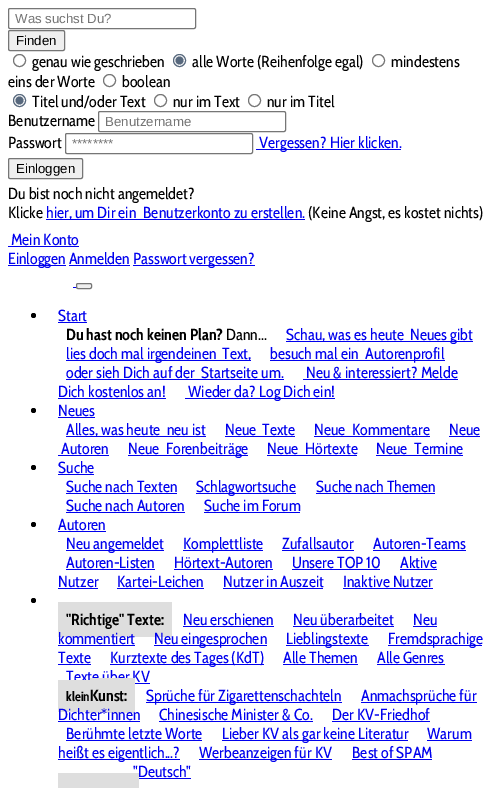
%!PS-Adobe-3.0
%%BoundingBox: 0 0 493 788
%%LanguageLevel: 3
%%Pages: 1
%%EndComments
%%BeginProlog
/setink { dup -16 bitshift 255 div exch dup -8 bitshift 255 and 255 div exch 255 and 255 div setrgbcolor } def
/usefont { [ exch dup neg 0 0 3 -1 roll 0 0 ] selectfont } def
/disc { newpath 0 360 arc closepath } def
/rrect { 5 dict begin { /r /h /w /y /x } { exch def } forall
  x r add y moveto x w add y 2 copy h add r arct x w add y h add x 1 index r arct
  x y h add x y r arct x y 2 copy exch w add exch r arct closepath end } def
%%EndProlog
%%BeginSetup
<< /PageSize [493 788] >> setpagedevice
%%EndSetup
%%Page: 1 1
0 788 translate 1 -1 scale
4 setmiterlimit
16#FFFFFF setink
0 0 493 788 rectfill
16#767676 setink
8.5 8.5 187 20 1.5 rrect stroke
/LiberationSans-Regular 13.25 usefont
16#757575 setink
15 23 moveto (Was suchst Du?) show
16#EFEFEF setink
8.5 30.5 56 20 1.5 rrect gsave fill grestore
16#767676 setink
stroke
16#000000 setink
16 45 moveto (Finden) show
16#767676 setink
19.5 60.5 6 disc stroke
/CabinCondensed-Regular 16 usefont
16#000000 setink
32 67 moveto (genau wie geschrieben) show
16#57687D setink
179.5 60.5 6 disc stroke
179.5 60.5 4 disc fill
16#000000 setink
192 67 moveto (alle Worte \(Reihenfolge egal\)) show
16#767676 setink
378.5 60.5 6 disc stroke
16#000000 setink
391 67 moveto (mindestens) show
8 87 moveto (eins der Worte) show
16#767676 setink
109.5 80.5 6 disc stroke
16#000000 setink
122 87 moveto (boolean) show
16#57687D setink
19.5 100.5 6 disc stroke
19.5 100.5 4 disc fill
16#000000 setink
32 107 moveto (Titel und/oder Text) show
16#767676 setink
160.5 100.5 6 disc stroke
16#000000 setink
173 107 moveto (nur im Text) show
16#767676 setink
254.5 100.5 6 disc stroke
16#000000 setink
267 107 moveto (nur im Titel) show
8 126 moveto (Benutzername) show
16#767676 setink
98.5 111.5 187 20 1.5 rrect stroke
/LiberationSans-Regular 13.25 usefont
16#757575 setink
105 126 moveto (Benutzername) show
/CabinCondensed-Regular 16 usefont
16#000000 setink
8 148 moveto (Passwort) show
16#767676 setink
65.5 133.5 187 20 1.5 rrect stroke
/LiberationSans-Regular 13.25 usefont
16#757575 setink
72 148 moveto (********) show
16#0000EE setink
256 149 145 1 rectfill
/CabinCondensed-Regular 16 usefont
259 148 moveto (Vergessen? Hier klicken.) show
16#EFEFEF setink
8.5 158.5 74 20 1.5 rrect gsave fill grestore
16#767676 setink
stroke
/LiberationSans-Regular 13.25 usefont
16#000000 setink
16 173 moveto (Einloggen) show
/CabinCondensed-Regular 16 usefont
8 199 moveto (Du bist noch nicht angemeldet?) show
8 218 moveto (Klicke) show
16#0000EE setink
46 219 259 1 rectfill
46 218 moveto (hier, um Dir ein) show
143 218 moveto (Benutzerkonto zu erstellen.) show
16#000000 setink
308 218 moveto (\(Keine Angst, es kostet nichts\)) show
16#0000EE setink
11 245 moveto (Mein Konto) show
8 246 71 1 rectfill
8 265 58 1 rectfill
8 264 moveto (Einloggen Anmelden) show
133 265 122 1 rectfill
133 264 moveto (Passwort vergessen?) show
69 265 61 1 rectfill
73 287 3 1 rectfill
16#EFEFEF setink
76.5 283.5 15 5 1.5 rrect gsave fill grestore
16#767676 setink
stroke
16#000000 setink
33.5 315.5 2.5 disc fill
16#0000EE setink
58 321 moveto (Start) show
58 322 29 1 rectfill
/CabinCondensed-Bold 16 usefont
16#000000 setink
66 340 moveto (Du hast noch keinen Plan?) show
/CabinCondensed-Regular 16 usefont
226 340 moveto (Dann...) show
16#0000EE setink
286 341 187 1 rectfill
286 340 moveto (Schau, was es heute) show
410 340 moveto (Neues gibt) show
66 360 185 1 rectfill
[
    [(lies doch mal irgendeinen) 66 359]
    [(Text,) 222 359]
    [(besuch mal ein) 270 359]
] { aload pop moveto show } forall
270 360 175 1 rectfill
365 359 moveto (Autorenprofil) show
66 378 moveto (oder sieh Dich auf der) show
66 379 218 1 rectfill
201 378 moveto (Startseite um.) show
306 378 moveto (Neu & interessiert? Melde) show
303 379 155 1 rectfill
58 397 moveto (Dich kostenlos an!) show
58 398 108 1 rectfill
185 398 150 1 rectfill
188 397 moveto (Wieder da? Log Dich ein!) show
16#000000 setink
33.5 410.5 2.5 disc fill
16#0000EE setink
58 416 moveto (Neues) show
58 417 37 1 rectfill
66 436 140 1 rectfill
[
    [(Alles, was heute) 66 435]
    [(neu ist) 167 435]
    [(Neue) 225 435]
] { aload pop moveto show } forall
225 436 70 1 rectfill
262 435 moveto (Texte) show
314 435 moveto (Neue) show
314 436 116 1 rectfill
352 435 moveto (Kommentare) show
449 435 moveto (Neue) show
449 436 31 1 rectfill
61 454 moveto (Autoren) show
58 455 51 1 rectfill
128 454 moveto (Neue) show
128 455 120 1 rectfill
166 454 moveto (Forenbeiträge) show
267 454 moveto (Neue) show
267 455 90 1 rectfill
305 454 moveto (Hörtexte) show
376 454 moveto (Neue) show
376 455 87 1 rectfill
414 454 moveto (Termine) show
16#000000 setink
33.5 467.5 2.5 disc fill
16#0000EE setink
58 473 moveto (Suche) show
58 474 36 1 rectfill
66 492 moveto (Suche nach Texten) show
66 493 111 1 rectfill
196 493 100 1 rectfill
196 492 moveto (Schlagwortsuche) show
316 492 moveto (Suche nach Themen) show
316 493 119 1 rectfill
66 511 moveto (Suche nach Autoren) show
66 512 119 1 rectfill
204 511 moveto (Suche im Forum) show
204 512 96 1 rectfill
16#000000 setink
33.5 524.5 2.5 disc fill
16#0000EE setink
58 530 moveto (Autoren) show
58 531 48 1 rectfill
66 550 98 1 rectfill
66 549 moveto (Neu angemeldet) show
183 550 80 1 rectfill
183 549 moveto (Komplettliste) show
282 549 moveto (Zufallsautor) show
282 550 72 1 rectfill
373 549 moveto (Autoren-Teams) show
373 550 93 1 rectfill
66 568 moveto (Autoren-Listen) show
66 569 89 1 rectfill
174 568 moveto (Hörtext-Autoren) show
174 569 99 1 rectfill
292 568 moveto (Unsere TOP 10) show
292 569 88 1 rectfill
400 568 moveto (Aktive) show
400 569 37 1 rectfill
58 587 moveto (Nutzer) show
58 588 40 1 rectfill
117 587 moveto (Kartei-Leichen) show
117 588 87 1 rectfill
223 587 moveto (Nutzer in Auszeit) show
223 588 100 1 rectfill
343 587 moveto (Inaktive Nutzer) show
343 588 90 1 rectfill
16#000000 setink
33.5 600.5 2.5 disc fill
16#DEDEDE setink
58 602 114 35 rectfill
/CabinCondensed-Bold 16 usefont
16#000000 setink
66 625 moveto ("Richtige" Texte:) show
/CabinCondensed-Regular 16 usefont
16#0000EE setink
183 625 moveto (Neu erschienen) show
183 626 91 1 rectfill
293 625 moveto (Neu überarbeitet) show
293 626 101 1 rectfill
413 625 moveto (Neu) show
413 626 24 1 rectfill
58 644 moveto (kommentiert) show
58 645 77 1 rectfill
154 645 113 1 rectfill
154 644 moveto (Neu eingesprochen) show
286 645 83 1 rectfill
286 644 moveto (Lieblingstexte) show
388 645 94 1 rectfill
388 644 moveto (Fremdsprachige) show
58 663 moveto (Texte) show
58 664 33 1 rectfill
110 664 154 1 rectfill
110 663 moveto (Kurztexte des Tages \(KdT\)) show
283 663 moveto (Alle Themen) show
283 664 75 1 rectfill
377 663 moveto (Alle Genres) show
377 664 68 1 rectfill
66 682 moveto (Texte über KV) show
135 683 15 1 rectfill
16#DEDEDE setink
58 680 32 32 rectfill
/CabinCondensed-Bold 13.25 usefont
16#000000 setink
66 701 moveto (klein) show
16#DEDEDE setink
90 678 45 35 rectfill
/CabinCondensed-Bold 16 usefont
16#000000 setink
90 701 moveto (Kunst:) show
16#0000EE setink
146 702 196 1 rectfill
/CabinCondensed-Regular 16 usefont
146 701 moveto (Sprüche für Zigarettenschachteln) show
361 702 116 1 rectfill
361 701 moveto (Anmachsprüche für) show
58 720 moveto (Dichter*innen) show
58 721 82 1 rectfill
159 720 moveto (Chinesische Minister & Co.) show
159 721 154 1 rectfill
332 720 moveto (Der KV-Friedhof) show
332 721 98 1 rectfill
66 739 moveto (Berühmte letzte Worte) show
66 740 136 1 rectfill
222 740 186 1 rectfill
222 739 moveto (Lieber KV als gar keine Literatur) show
427 739 moveto (Warum) show
427 740 45 1 rectfill
58 759 122 1 rectfill
58 758 moveto (heißt es eigentlich...?) show
199 759 133 1 rectfill
199 758 moveto (Werbeanzeigen für KV) show
352 758 moveto (Best of SPAM) show
352 759 80 1 rectfill
133 777 moveto ("Deutsch") show
139 778 52 1 rectfill
16#DEDEDE setink
58 773 81 15 rectfill
showpage
%%EOF
